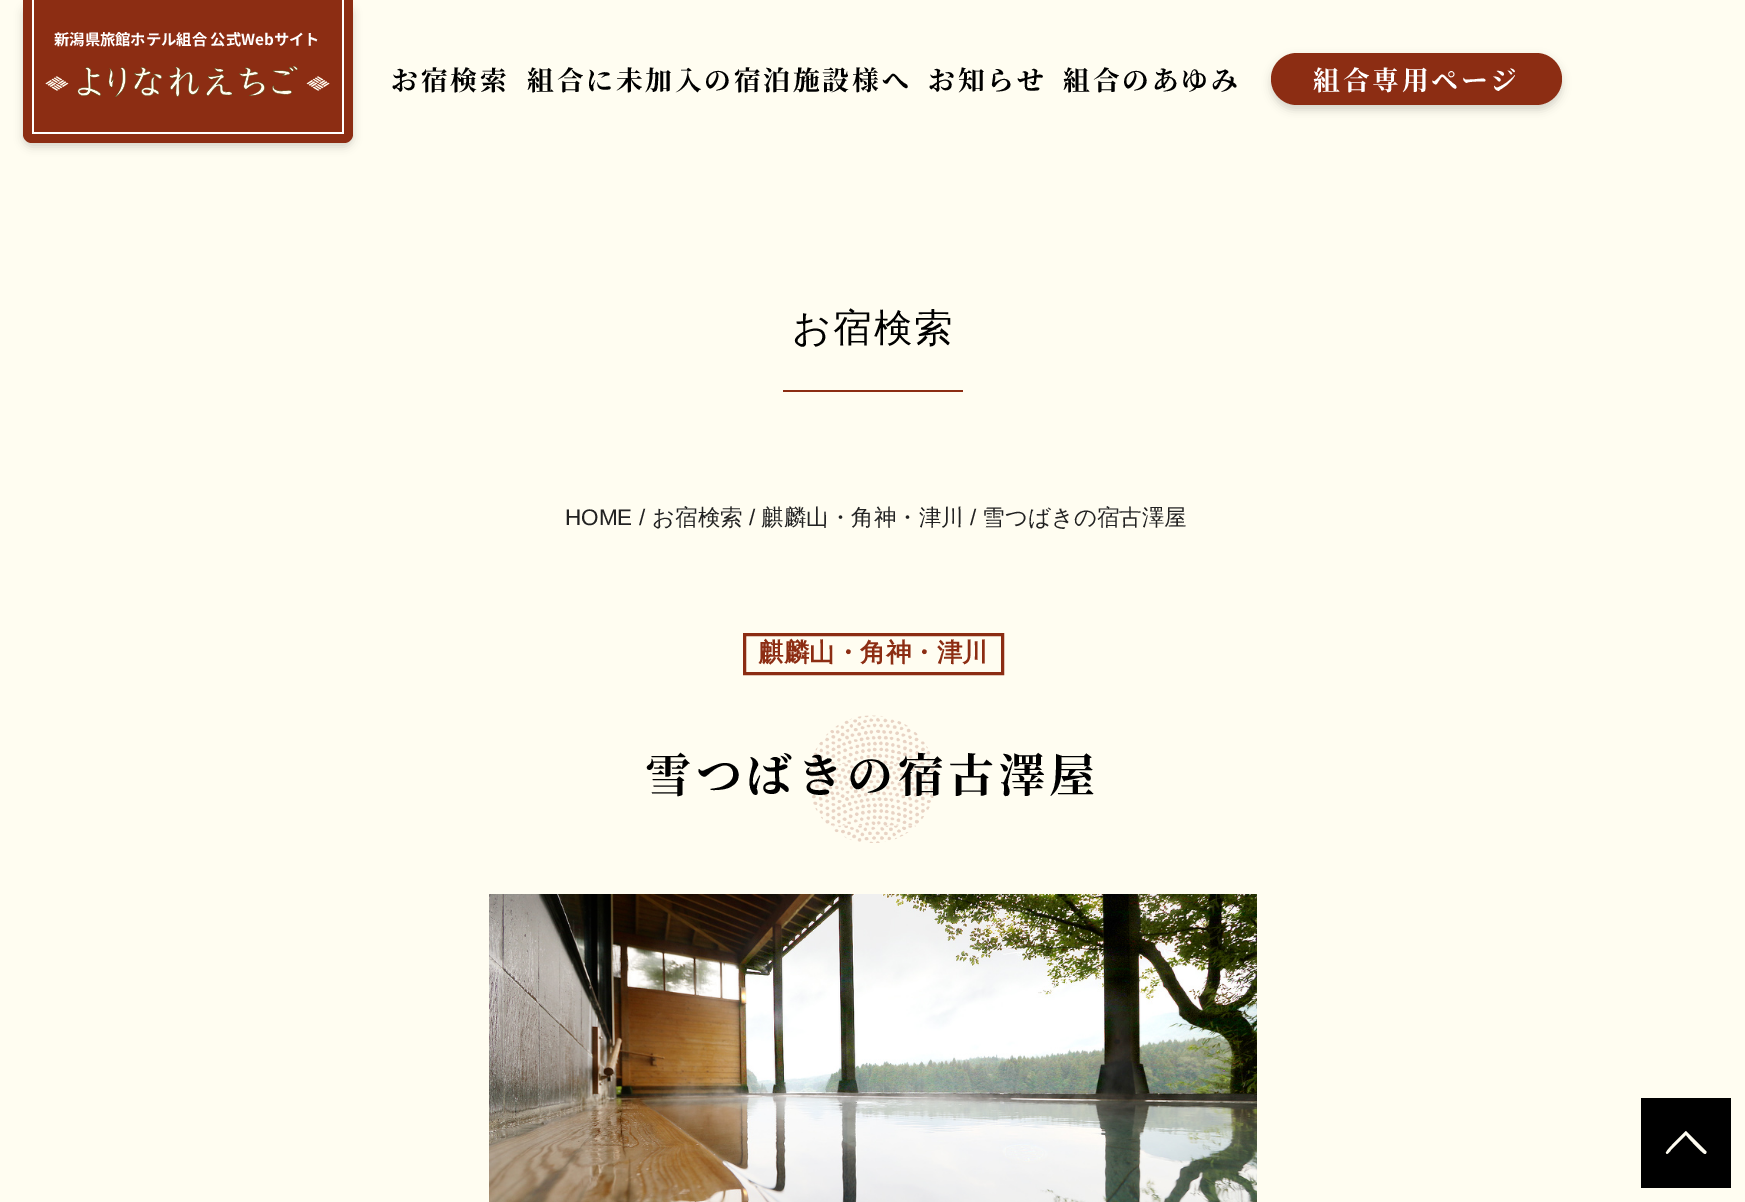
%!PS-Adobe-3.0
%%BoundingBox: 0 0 1745 1202
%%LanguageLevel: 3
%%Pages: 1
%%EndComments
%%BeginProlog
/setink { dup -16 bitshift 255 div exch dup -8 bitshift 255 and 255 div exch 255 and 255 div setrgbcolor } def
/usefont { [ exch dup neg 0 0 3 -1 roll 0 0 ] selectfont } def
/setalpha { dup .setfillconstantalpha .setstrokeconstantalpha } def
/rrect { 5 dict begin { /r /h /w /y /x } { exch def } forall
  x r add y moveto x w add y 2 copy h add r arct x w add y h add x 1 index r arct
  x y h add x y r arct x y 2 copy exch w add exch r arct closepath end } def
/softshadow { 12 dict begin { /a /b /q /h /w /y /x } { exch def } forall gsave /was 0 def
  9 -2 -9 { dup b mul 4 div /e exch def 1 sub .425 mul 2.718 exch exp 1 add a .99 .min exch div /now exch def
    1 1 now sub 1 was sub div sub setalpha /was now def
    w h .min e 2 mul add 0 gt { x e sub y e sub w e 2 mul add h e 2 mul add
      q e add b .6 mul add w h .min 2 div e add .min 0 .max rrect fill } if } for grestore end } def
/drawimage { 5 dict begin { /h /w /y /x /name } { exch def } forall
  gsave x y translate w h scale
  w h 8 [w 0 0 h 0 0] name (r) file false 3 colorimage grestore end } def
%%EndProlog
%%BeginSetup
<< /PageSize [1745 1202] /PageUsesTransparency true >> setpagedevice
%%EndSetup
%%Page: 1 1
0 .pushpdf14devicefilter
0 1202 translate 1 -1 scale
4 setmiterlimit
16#FFFDF1 setink
0 0 1745 1202 rectfill
16#000000 setink
23 5 330 142 9 4.5 0.16 softshadow
16#8C2D13 setink
23 0 moveto 353 0 lineto 353 134 lineto 353 139 349 143 344 143 curveto 32 143 lineto 27 143 23 139 23 134 curveto closepath fill
[
    [342 0 2 134 16#FFFFFF]
    [32 132 312 2 16#FFFFFF]
    [32 0 2 134 16#FFFFFF]
] { aload pop setink rectfill } forall
/NotoSansJP-Bold 15.3 usefont
54 45 moveto (新潟県旅館ホテル組合 公式Webサイト) show
(img1.raw) 45 66 285 32 drawimage
/NotoSerifJP-Bold 26.8 usefont
16#000000 setink
391 90 moveto 2.75 0 (お宿検索) ashow
527 90 moveto 2.75 0 (組合に未加入の宿泊施設様へ) ashow
928 90 moveto 2.75 0 (お知らせ) ashow
1063 90 moveto 2.75 0 (組合のあゆみ) ashow
1271 57 291 53 26.5 4.5 0.16 softshadow
16#8C2D13 setink
1271 53 291 52 26 rrect fill
16#FFFFFF setink
1313 90 moveto 2.75 0 (組合専用ページ) ashow
/WenQuanYiZenHei-Medium 38.5 usefont
16#000000 setink
792 341 moveto 2 0 (お宿検索) ashow
16#8C2D13 setink
783 390 180 2 rectfill
/LiberationSans-Regular 22.5 usefont
16#222222 setink
565 525 moveto (HOME /) show
/WenQuanYiZenHei-Medium 22.5 usefont
652 525 moveto (お宿検索) show
/LiberationSans-Regular 22.5 usefont
749 525 moveto (/) show
/WenQuanYiZenHei-Medium 22.5 usefont
761 525 moveto (麒麟山・角神・津川) show
/LiberationSans-Regular 22.5 usefont
970 525 moveto (/) show
/WenQuanYiZenHei-Medium 22.5 usefont
982 525 moveto (雪つばきの宿古澤屋) show
16#8C2D13 setink
3 setlinewidth
744.5 634.5 258 39 rectstroke
/WenQuanYiZenHei-Bold 25.5 usefont
758 661 moveto (麒麟山・角神・津川) show
(img2.raw) 808 715 128 128 drawimage
/NotoSerifJP-Bold 46 usefont
16#000000 setink
645 792 moveto 4.5 0 (雪つばきの宿古澤屋) ashow
(img3.raw) 489 894 768 308 drawimage
1641 1098 90 90 rectfill
16#FFFDF1 setink
1705 1154 moveto 1703 1154 1688 1138 1686 1135 curveto 1671 1150 lineto 1671 1150 1667 1156 1666 1153 curveto 1665 1151 1683 1134 1686 1131 curveto 1706 1151 lineto 1707 1152 1706 1154 1705 1154 curveto closepath fill
.poppdf14devicefilter showpage
%%EOF
